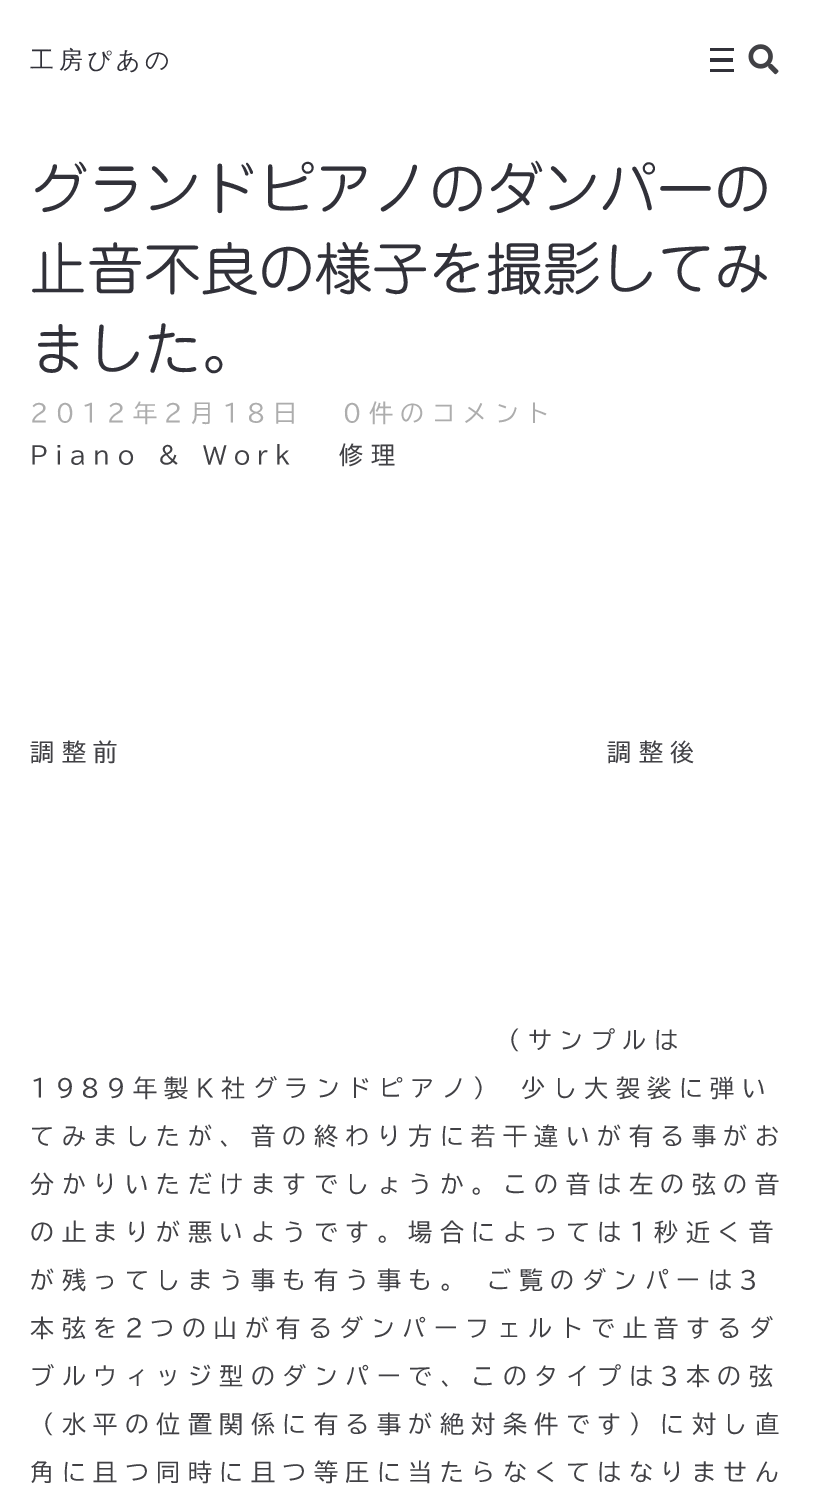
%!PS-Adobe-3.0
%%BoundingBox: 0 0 815 1504
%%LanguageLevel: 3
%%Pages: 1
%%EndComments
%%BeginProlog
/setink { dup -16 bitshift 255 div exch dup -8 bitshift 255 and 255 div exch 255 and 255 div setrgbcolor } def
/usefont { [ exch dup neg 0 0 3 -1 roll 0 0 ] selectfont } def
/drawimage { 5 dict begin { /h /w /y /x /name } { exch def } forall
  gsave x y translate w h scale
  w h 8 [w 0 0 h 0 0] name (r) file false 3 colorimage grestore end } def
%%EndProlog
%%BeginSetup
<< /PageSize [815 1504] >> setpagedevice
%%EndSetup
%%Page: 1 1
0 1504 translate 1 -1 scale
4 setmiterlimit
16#FFFFFF setink
0 0 815 1504 rectfill
/WenQuanYiZenHei-Medium 24 usefont
16#313139 setink
30 68 moveto 4.5 0 (工房ぴあの) ashow
[
    [710 48 24 3 16#313139]
    [710 58 23 4 16#313139]
    [710 69 24 3 16#313139]
] { aload pop setink rectfill } forall
(img1.raw) 748 44 31 31 drawimage
/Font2-Regular 57 usefont
[
    [(グランドピアノのダンパーの) 30 210]
    [(止音不良の様子を撮影してみ) 30 290]
    [(ました。) 30 370]
] { aload pop moveto show } forall
/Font-Regular 24 usefont
16#ADADAD setink
30 422 moveto 7.5 0 (2012年2月18日) ashow
343 422 moveto 7.5 0 (0件のコメント) ashow
16#414145 setink
30 464 moveto 7.5 0 (Piano & Work) ashow
339 464 moveto 7.5 0 (修理) ashow
30 761 moveto 7.5 0 (調整前) ashow
607 761 moveto 7.5 0 (調整後) ashow
496 1049 moveto 7.5 0 (（サンプルは) ashow
30 1097 moveto 7.5 0 (1989年製K社グランドピアノ） 少し大袈裟に弾い) ashow
30 1145 moveto 7.5 0 (てみましたが、音の終わり方に若干違いが有る事がお) ashow
30 1193 moveto 7.5 0 (分かりいただけますでしょうか。この音は左の弦の音) ashow
30 1241 moveto 7.5 0 (の止まりが悪いようです。場合によっては1秒近く音) ashow
30 1289 moveto 7.5 0 (が残ってしまう事も有う事も。 ご覧のダンパーは3) ashow
30 1337 moveto 7.5 0 (本弦を2つの山が有るダンパーフェルトで止音するダ) ashow
30 1385 moveto 7.5 0 (ブルウィッジ型のダンパーで、このタイプは3本の弦) ashow
30 1433 moveto 7.5 0 (（水平の位置関係に有る事が絶対条件です）に対し直) ashow
30 1481 moveto 7.5 0 (角に且つ同時に且つ等圧に当たらなくてはなりません) ashow
showpage
%%EOF
